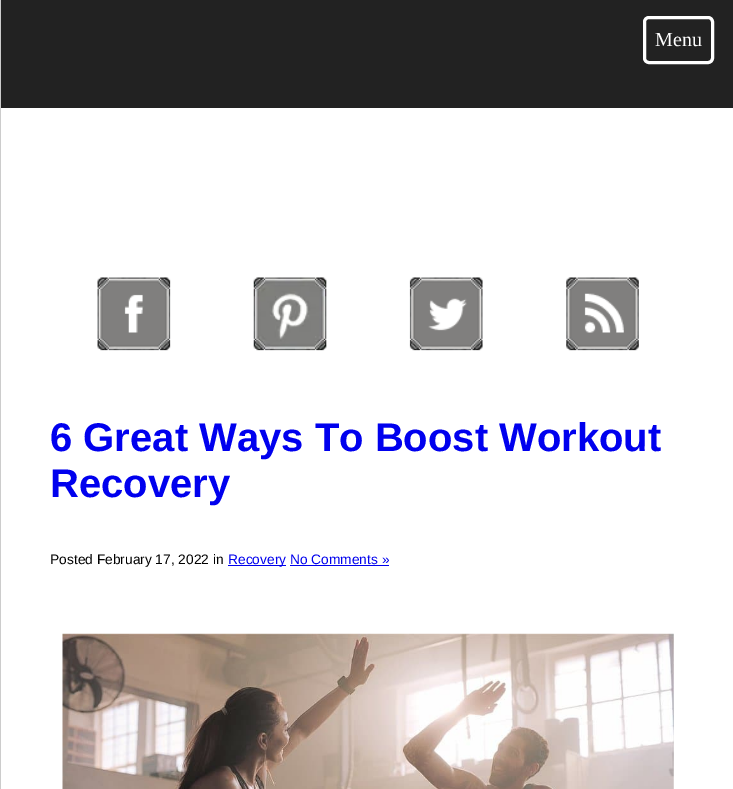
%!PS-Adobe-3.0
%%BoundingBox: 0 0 733 789
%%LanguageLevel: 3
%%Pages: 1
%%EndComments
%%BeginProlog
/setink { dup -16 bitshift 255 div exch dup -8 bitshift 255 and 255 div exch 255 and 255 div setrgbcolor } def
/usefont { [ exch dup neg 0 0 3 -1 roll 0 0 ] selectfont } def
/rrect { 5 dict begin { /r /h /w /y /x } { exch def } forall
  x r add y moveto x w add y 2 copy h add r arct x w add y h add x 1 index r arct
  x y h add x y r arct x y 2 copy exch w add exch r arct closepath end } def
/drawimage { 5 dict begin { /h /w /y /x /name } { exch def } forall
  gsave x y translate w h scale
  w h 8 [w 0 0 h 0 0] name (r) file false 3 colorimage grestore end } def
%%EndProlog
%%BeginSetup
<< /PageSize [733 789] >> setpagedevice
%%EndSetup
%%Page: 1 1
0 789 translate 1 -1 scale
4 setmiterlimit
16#FFFFFF setink
0 0 733 789 rectfill
16#CCCCCC setink
0 0 1 789 rectfill
16#222222 setink
1 0 732 108 rectfill
16#FFFFFF setink
3 setlinewidth
644.5 17.5 68 45 4.5 rrect stroke
/LiberationSerif-Regular 20 usefont
655 46 moveto (Menu) show
(img1.raw) 97 277 74 74 drawimage
(img2.raw) 253 277 74 74 drawimage
(img3.raw) 409 277 74 74 drawimage
(img4.raw) 566 277 73 74 drawimage
/LiberationSans-Bold 40 usefont
16#0000EE setink
50 451 moveto (6 Great Ways To Boost Workout) show
50 497 moveto (Recovery) show
/LiberationSans-Regular 13.75 usefont
16#000000 setink
50 564 moveto (Posted February 17, 2022 in) show
16#0000EE setink
228 565 58 1 rectfill
228 564 moveto (Recovery No Comments ») show
290 565 99 1 rectfill
(img5.raw) 62 633 612 156 drawimage
showpage
%%EOF
